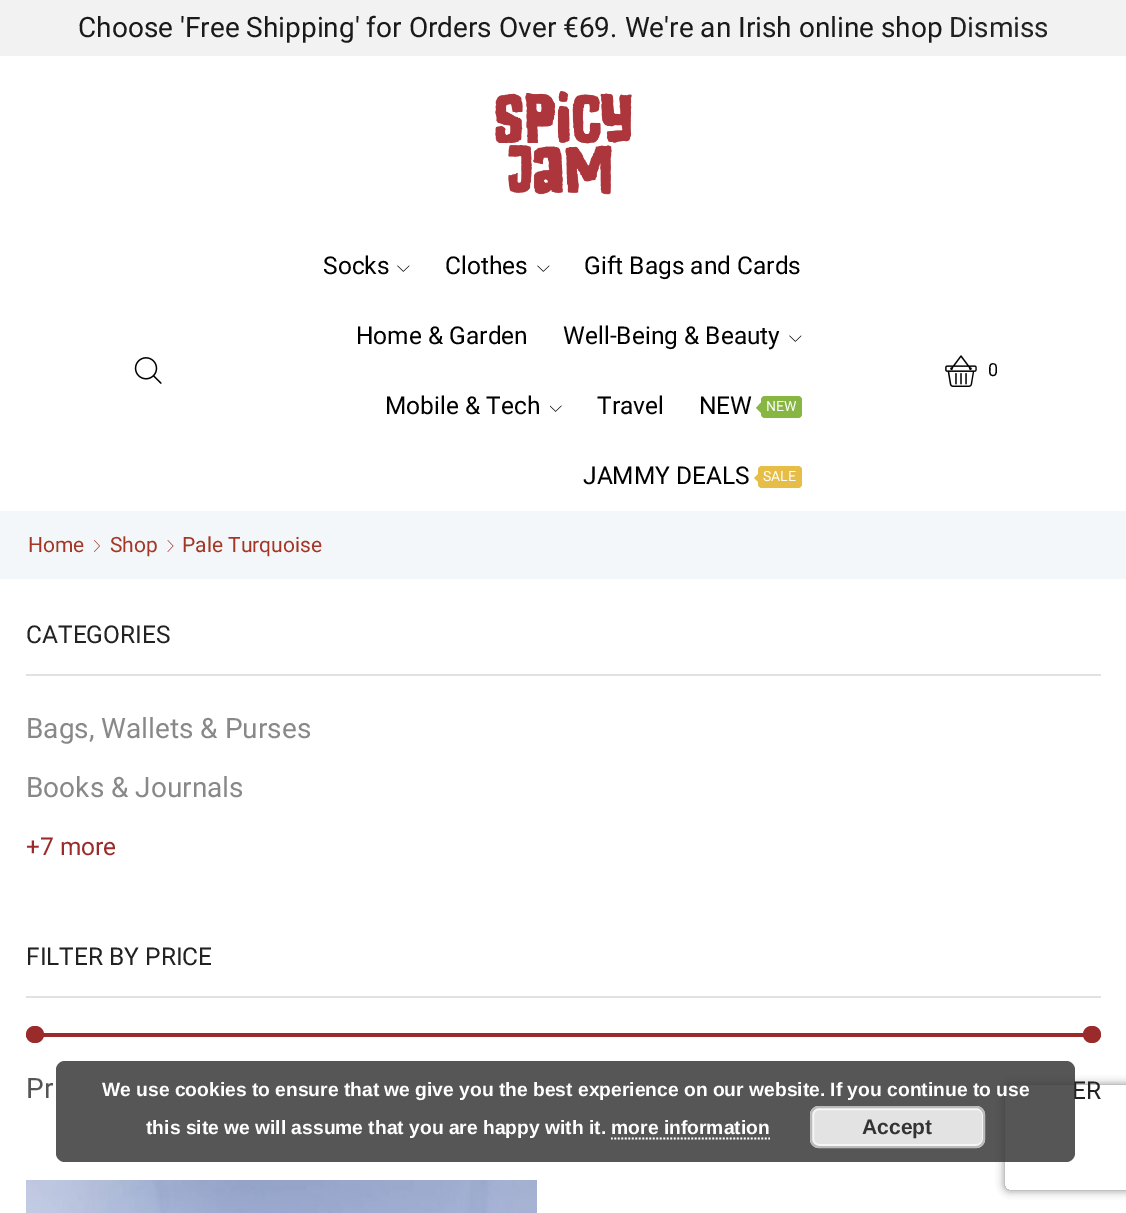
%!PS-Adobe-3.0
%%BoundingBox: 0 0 1126 1213
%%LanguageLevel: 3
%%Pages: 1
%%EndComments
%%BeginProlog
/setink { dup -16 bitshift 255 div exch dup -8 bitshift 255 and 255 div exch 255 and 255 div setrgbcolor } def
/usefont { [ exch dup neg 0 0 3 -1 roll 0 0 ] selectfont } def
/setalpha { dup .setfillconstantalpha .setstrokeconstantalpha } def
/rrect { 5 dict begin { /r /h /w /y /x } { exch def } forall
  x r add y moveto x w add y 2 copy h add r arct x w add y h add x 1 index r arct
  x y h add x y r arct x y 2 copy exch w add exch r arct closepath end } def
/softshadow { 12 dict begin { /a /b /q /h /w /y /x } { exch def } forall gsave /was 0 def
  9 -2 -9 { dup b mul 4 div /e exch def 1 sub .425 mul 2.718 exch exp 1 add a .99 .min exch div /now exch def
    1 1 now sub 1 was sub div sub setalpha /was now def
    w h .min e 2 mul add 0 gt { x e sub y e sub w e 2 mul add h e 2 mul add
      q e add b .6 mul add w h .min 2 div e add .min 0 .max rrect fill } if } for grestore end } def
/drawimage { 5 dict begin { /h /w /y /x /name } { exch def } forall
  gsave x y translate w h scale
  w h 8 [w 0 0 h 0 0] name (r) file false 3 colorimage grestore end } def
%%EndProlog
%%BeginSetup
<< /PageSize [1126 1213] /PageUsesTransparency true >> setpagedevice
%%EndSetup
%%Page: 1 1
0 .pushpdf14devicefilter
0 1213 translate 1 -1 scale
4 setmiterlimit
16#FFFFFF setink
0 0 1126 1213 rectfill
16#F2F2F2 setink
0 0 1126 56 rectfill
/Roboto-Regular 28 usefont
16#1A1A1A setink
78 37 moveto (Choose 'Free Shipping' for Orders Over €69. We're an Irish online shop) show
16#222222 setink
949 37 moveto (Dismiss) show
(img1.raw) 495 91 137 104 drawimage
(img2.raw) 134 357 28 27 drawimage
/Roboto-Regular 24.5 usefont
16#000000 setink
323 274 moveto (Socks) show
(img3.raw) 397 265 13 7 drawimage
445 274 moveto (Clothes) show
(img3.raw) 537 265 13 7 drawimage
[
    [(Gift Bags and Cards) 584 274]
    [(Home & Garden) 356 344]
    [(Well-Being & Beauty) 563 344]
] { aload pop moveto show } forall
(img3.raw) 789 335 13 7 drawimage
385 414 moveto (Mobile & Tech) show
(img4.raw) 550 405 12 7 drawimage
597 414 moveto (Travel) show
699 414 moveto (NEW) show
16#88B643 setink
761 396 41 22 4 rrect fill
761 402.5 moveto 761 413 lineto 756 408 lineto closepath fill
/Roboto-Regular 14 usefont
16#FFFFFF setink
766 411 moveto (NEW) show
/Roboto-Regular 24.5 usefont
16#000000 setink
583 484 moveto (JAMMY DEALS) show
16#E6BD47 setink
758 466 44 22 4 rrect fill
759.5 472.5 moveto 759.5 483 lineto 754 478 lineto closepath fill
/Roboto-Regular 14 usefont
16#FFFFFF setink
763 481 moveto (SALE) show
(img5.raw) 945 355 32 32 drawimage
/Roboto-Regular 18 usefont
16#000000 setink
988 376 moveto (0) show
16#F4F7F9 setink
0 511 1126 68 rectfill
/Roboto-Regular 21 usefont
16#A33625 setink
28 552 moveto (Home) show
(img6.raw) 94 540 6 12 drawimage
110 552 moveto (Shop) show
(img7.raw) 167 540 7 12 drawimage
182 552 moveto (Pale Turquoise) show
16#E1E1E1 setink
26 674 1075 2 rectfill
/Roboto-Regular 24.5 usefont
16#222222 setink
26 643 moveto (CATEGORIES) show
/Roboto-Regular 28 usefont
16#888888 setink
26 738 moveto (Bags, Wallets & Purses) show
26 797 moveto (Books & Journals) show
/Roboto-Regular 24.5 usefont
16#9B2B2A setink
26 855 moveto (+7 more) show
16#E1E1E1 setink
26 996 1075 2 rectfill
16#222222 setink
26 965 moveto (FILTER BY PRICE) show
16#9B2B2A setink
26 1033 1075 4 rectfill
26 1026 18 17 8.5 rrect fill
1083 1026 18 17 8.5 rrect fill
/Roboto-Regular 28 usefont
16#555555 setink
26 1098 moveto (Pr) show
gsave
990 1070 moveto 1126 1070 lineto 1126 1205 lineto 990 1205 lineto closepath 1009 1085 moveto 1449 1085 lineto 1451 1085 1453 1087 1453 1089 curveto 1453 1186 lineto 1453 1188 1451 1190 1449 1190 curveto 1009 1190 lineto 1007 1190 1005 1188 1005 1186 curveto 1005 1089 lineto 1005 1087 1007 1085 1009 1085 curveto closepath eoclip newpath
16#808080 setink
1005 1085 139 105 4 4.5 1 softshadow
grestore
/Roboto-Regular 24.5 usefont
16#222222 setink
1072 1099 moveto (ER) show
(img8.raw) 26 1180 511 33 drawimage
0.85 setalpha
16#383838 setink
56 1061 1019 101 9 rrect fill
/LiberationSans-Bold 19.25 usefont
1 setalpha
16#FFFFFF setink
102 1096 moveto (We use cookies to ensure that we give you the best experience on our website. If you continue to use) show
146 1134 moveto (this site we will assume that you are happy with it. more information) show
16#E3E3E3 setink
810 1106 175 42 9 rrect fill
16#F6F6F6 setink
2 setlinewidth
813 1109 170 36 6 rrect stroke
16#BBBBBB setink
811 1107 173 40 8 rrect stroke
/LiberationSans-Bold 21 usefont
16#333333 setink
862 1134 moveto (Accept) show
16#FFFFFF setink
1.8 setlinewidth
[1.75 1.75] 0 setdash
611 1138.5 moveto 770 1138.5 lineto stroke
.poppdf14devicefilter showpage
%%EOF
